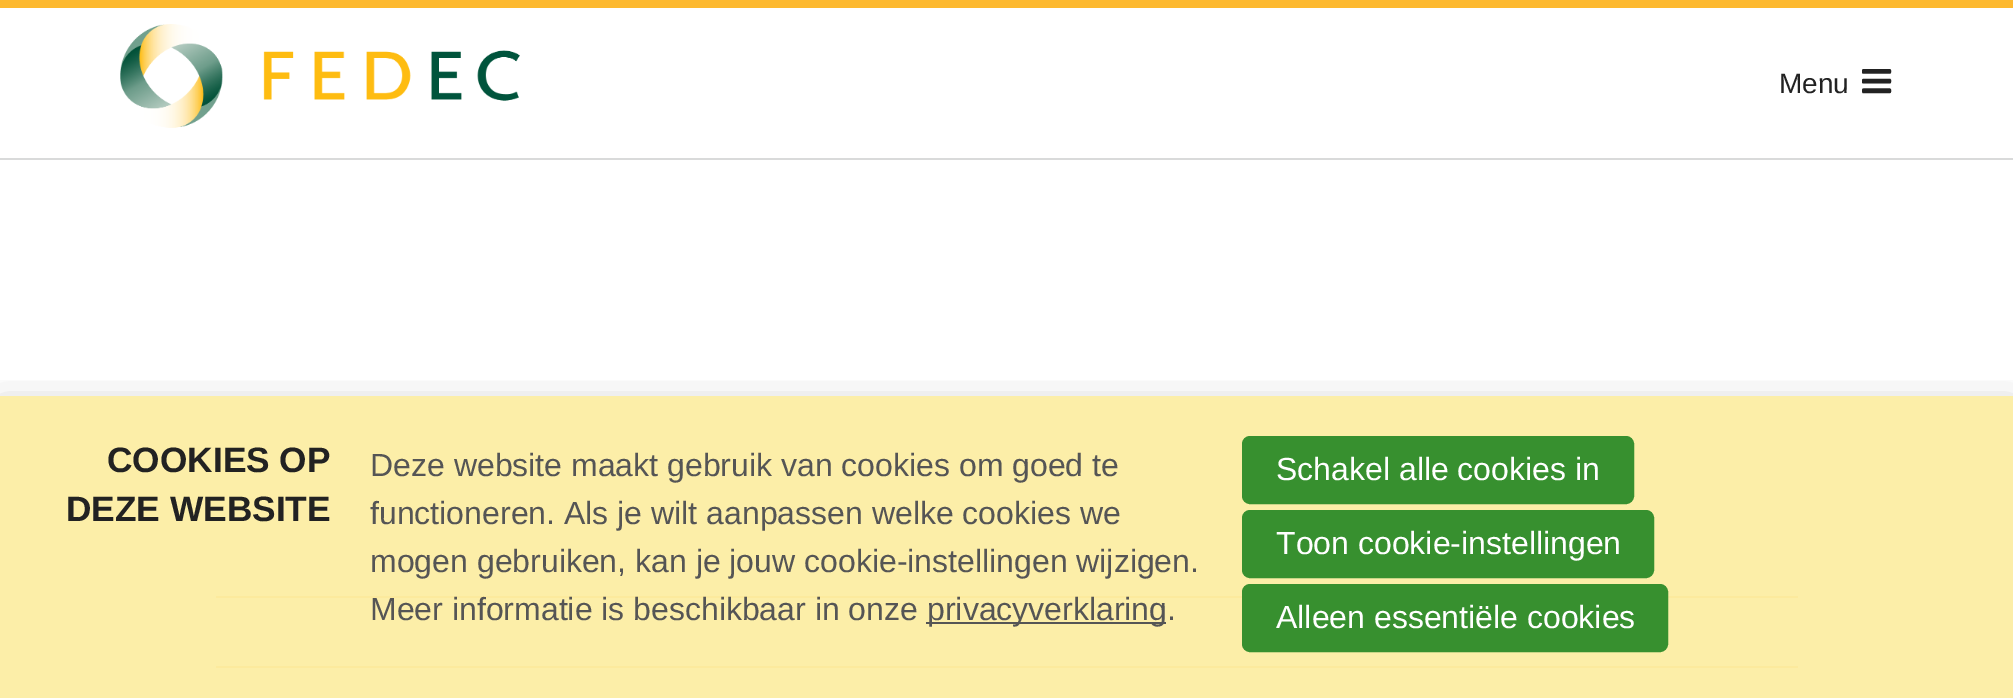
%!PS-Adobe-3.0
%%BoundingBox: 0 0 2013 698
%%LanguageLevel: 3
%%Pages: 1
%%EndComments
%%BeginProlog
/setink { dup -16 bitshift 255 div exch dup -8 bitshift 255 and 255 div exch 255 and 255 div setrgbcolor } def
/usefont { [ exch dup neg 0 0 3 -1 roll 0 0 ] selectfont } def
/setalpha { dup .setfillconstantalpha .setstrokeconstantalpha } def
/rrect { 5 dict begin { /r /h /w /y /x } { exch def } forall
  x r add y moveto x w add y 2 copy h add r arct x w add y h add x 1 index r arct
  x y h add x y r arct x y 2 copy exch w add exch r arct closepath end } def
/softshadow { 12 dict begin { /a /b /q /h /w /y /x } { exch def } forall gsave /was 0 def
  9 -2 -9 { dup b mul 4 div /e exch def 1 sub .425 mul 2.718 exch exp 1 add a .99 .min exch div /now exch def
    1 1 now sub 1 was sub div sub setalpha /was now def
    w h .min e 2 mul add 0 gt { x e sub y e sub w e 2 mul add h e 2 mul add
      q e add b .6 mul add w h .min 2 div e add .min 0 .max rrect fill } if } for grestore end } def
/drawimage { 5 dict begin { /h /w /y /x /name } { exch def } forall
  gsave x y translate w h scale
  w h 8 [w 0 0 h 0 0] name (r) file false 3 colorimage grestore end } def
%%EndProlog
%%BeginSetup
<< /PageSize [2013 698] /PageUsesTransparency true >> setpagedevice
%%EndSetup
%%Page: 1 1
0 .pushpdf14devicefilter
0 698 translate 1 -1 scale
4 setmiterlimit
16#FFFFFF setink
0 0 2013 698 rectfill
16#FDB92F setink
0 0 2013 8 rectfill
16#D9DADA setink
0 158 2013 2 rectfill
(img1.raw) 120 24 400 104 drawimage
/LiberationSans-Regular 28 usefont
16#222222 setink
1779 93 moveto (Menu) show
/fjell-Regular 34 usefont
1862 93 moveto (☰) show
16#FDB92F setink
216 596 1582 2 rectfill
216 666 1582 2 rectfill
gsave
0 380 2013 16 rectclip
16#000000 setink
0 406 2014 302 0 20 0.2 softshadow
grestore
0.95 setalpha
16#FCEDA3 setink
0 396 2013 302 rectfill
/LiberationSans-Bold 35.25 usefont
1 setalpha
16#222222 setink
107 472 moveto (COOKIES OP) show
66 521 moveto (DEZE WEBSITE) show
/LiberationSans-Regular 32 usefont
16#555555 setink
[
    [(Deze website maakt gebruik van cookies om goed te) 370 476]
    [(functioneren. Als je wilt aanpassen welke cookies we) 370 524]
    [(mogen gebruiken, kan je jouw cookie-instellingen wijzigen.) 370 572]
    [(Meer informatie is beschikbaar in onze) 370 620]
] { aload pop moveto show } forall
926 622 240 2 rectfill
927 620 moveto (privacyverklaring.) show
16#37902F setink
1243 437 390 66 7 rrect gsave fill grestore
2 setlinewidth
stroke
16#FFFFFF setink
1276 480 moveto (Schakel alle cookies in) show
16#37902F setink
1243 511 410 66 7 rrect gsave fill grestore
stroke
16#FFFFFF setink
1276 554 moveto (Toon cookie-instellingen) show
16#37902F setink
1243 585 424 66 7 rrect gsave fill grestore
stroke
16#FFFFFF setink
1276 628 moveto (Alleen essentiële cookies) show
.poppdf14devicefilter showpage
%%EOF
